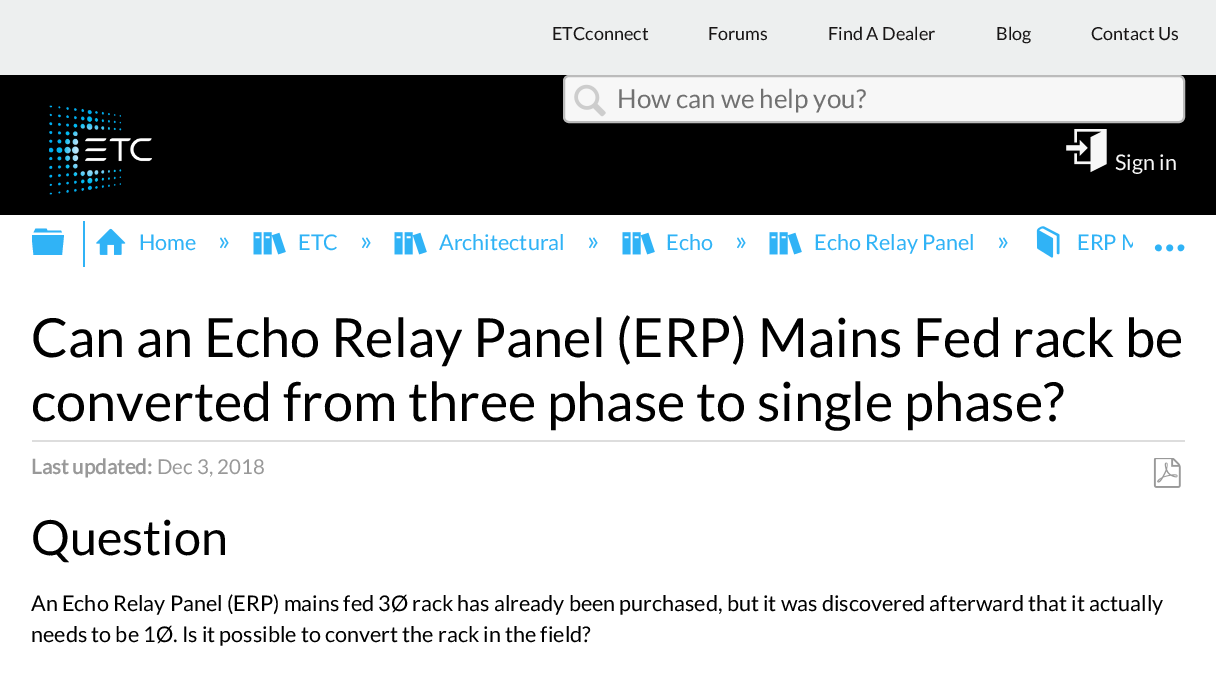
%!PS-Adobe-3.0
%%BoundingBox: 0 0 1216 691
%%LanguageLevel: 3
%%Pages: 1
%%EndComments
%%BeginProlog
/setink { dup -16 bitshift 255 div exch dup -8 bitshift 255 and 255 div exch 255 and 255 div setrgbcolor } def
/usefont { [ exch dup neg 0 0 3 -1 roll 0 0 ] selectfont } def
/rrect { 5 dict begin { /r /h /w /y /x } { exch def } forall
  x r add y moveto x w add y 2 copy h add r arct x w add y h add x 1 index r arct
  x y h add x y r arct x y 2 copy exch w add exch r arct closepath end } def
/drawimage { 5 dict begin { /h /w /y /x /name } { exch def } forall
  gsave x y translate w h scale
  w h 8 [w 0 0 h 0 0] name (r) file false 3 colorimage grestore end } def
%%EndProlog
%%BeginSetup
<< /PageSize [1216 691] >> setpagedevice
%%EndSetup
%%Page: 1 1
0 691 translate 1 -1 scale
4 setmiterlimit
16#FFFFFF setink
0 0 1216 691 rectfill
16#EDEFEF setink
0 0 1216 75 rectfill
/Lato-Regular 18 usefont
16#181616 setink
[
    [(ETCconnect) 552 40]
    [(Forums) 708 40]
    [(Find A Dealer) 828 40]
    [(Blog) 996 40]
    [(Contact Us) 1091 40]
] { aload pop moveto show } forall
16#000000 setink
0 75 1216 140 rectfill
(img1.raw) 49 105 103 90 drawimage
16#F7F7F7 setink
564 76 620 46 5 rrect gsave fill grestore
16#BBBBBB setink
2 setlinewidth
stroke
(img2.raw) 574 84 32 33 drawimage
/Lato-Regular 26 usefont
16#717171 setink
617 108 moveto (How can we help you?) show
(img3.raw) 1066 129 41 44 drawimage
/Lato-Regular 21.6 usefont
16#F7F7F7 setink
1115 170 moveto (Sign in) show
16#30B3F6 setink
32 240 moveto 32 235 lineto 64 235 lineto 62 255 lineto 33.5 255 lineto closepath 61 230.5 moveto 47.5 230.5 lineto 46.5 228.5 lineto 35.5 228.5 lineto 33.5 232.5 lineto 62 232.5 lineto closepath eofill
83 221 2 46 rectfill
(img4.raw) 96 228 30 27 drawimage
139 250 moveto (Home) show
/Lato-Regular 27 usefont
218 250 moveto (») show
(img5.raw) 253 232 33 23 drawimage
/Lato-Regular 21.6 usefont
298 250 moveto (ETC) show
/Lato-Regular 27 usefont
360 250 moveto (») show
(img5.raw) 394 232 33 23 drawimage
/Lato-Regular 21.6 usefont
439 250 moveto (Architectural) show
/Lato-Regular 27 usefont
587 250 moveto (») show
(img5.raw) 622 232 33 23 drawimage
/Lato-Regular 21.6 usefont
666 250 moveto (Echo) show
/Lato-Regular 27 usefont
735 250 moveto (») show
(img5.raw) 769 232 33 23 drawimage
/Lato-Regular 21.6 usefont
814 250 moveto (Echo Relay Panel) show
/Lato-Regular 27 usefont
997 250 moveto (») show
(img6.raw) 1036 226 24 32 drawimage
gsave
84 221 1049 46 rectclip
/Lato-Regular 21.6 usefont
1077 250 moveto (ERP M) show
grestore
(img7.raw) 1154 244 31 8 drawimage
16#DDDDDD setink
32 440 1153 2 rectfill
/Lato-Regular 54 usefont
16#000000 setink
31 357 moveto (Can an Echo Relay Panel \(ERP\) Mains Fed rack be) show
31 421 moveto (converted from three phase to single phase?) show
/Lato-Bold 20.5 usefont
16#999999 setink
31 474 moveto (Last updated:) show
/Lato-Regular 20.5 usefont
157 474 moveto (Dec 3, 2018) show
(img8.raw) 1153 458 28 30 drawimage
/Lato-Regular 48.5 usefont
16#000000 setink
31 555 moveto (Question) show
/Lato-Regular 21.6 usefont
31 611 moveto (An Echo Relay Panel \(ERP\) mains fed 3Ø rack has already been purchased, but it was discovered afterward that it actually) show
31 642 moveto (needs to be 1Ø. Is it possible to convert the rack in the field?) show
showpage
%%EOF
